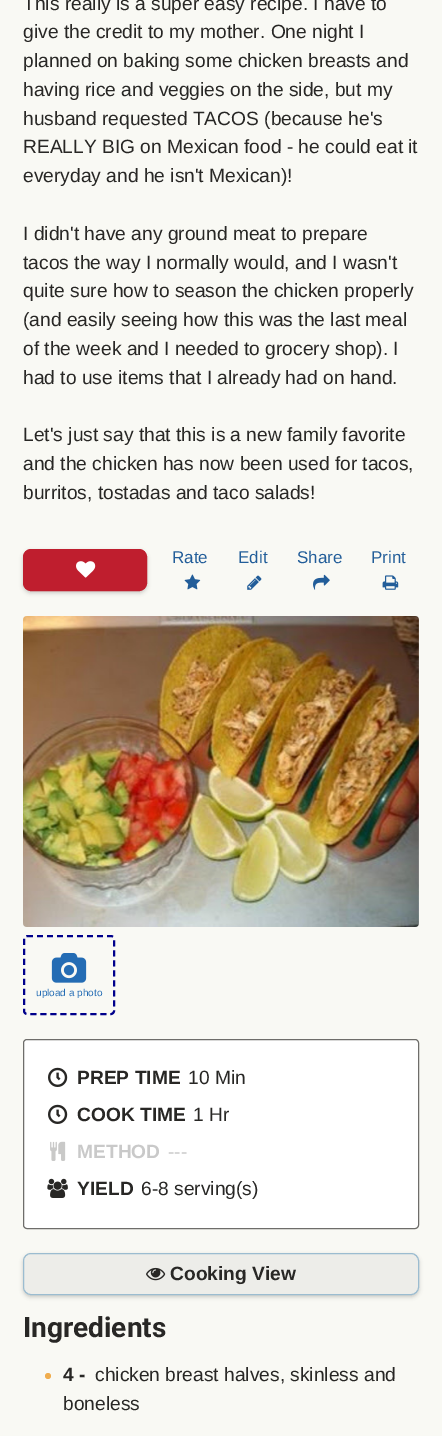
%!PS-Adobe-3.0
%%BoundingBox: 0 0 442 1436
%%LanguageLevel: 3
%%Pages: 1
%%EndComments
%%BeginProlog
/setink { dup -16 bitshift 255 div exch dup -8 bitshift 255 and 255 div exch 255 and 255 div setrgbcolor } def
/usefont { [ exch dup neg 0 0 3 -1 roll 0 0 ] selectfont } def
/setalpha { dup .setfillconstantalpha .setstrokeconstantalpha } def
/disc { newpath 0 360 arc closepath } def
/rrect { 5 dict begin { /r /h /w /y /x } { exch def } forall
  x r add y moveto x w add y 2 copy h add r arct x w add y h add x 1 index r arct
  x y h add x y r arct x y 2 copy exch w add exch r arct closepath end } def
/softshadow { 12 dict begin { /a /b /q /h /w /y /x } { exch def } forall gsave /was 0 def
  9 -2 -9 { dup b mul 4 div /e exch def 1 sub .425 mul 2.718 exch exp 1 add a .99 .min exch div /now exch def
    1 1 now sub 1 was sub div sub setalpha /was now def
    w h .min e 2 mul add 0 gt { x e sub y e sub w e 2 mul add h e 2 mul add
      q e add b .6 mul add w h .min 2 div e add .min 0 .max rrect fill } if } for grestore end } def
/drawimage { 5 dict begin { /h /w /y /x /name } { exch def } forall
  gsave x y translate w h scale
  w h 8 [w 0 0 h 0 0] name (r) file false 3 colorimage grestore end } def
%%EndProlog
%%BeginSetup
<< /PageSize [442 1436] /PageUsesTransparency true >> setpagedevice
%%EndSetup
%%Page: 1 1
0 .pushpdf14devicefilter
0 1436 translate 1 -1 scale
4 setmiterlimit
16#F9F9F4 setink
0 0 442 1436 rectfill
/LiberationSans-Regular 19.2 usefont
16#282725 setink
[
    [(This really is a super easy recipe. I have to) 23 10]
    [(give the credit to my mother. One night I) 23 38]
    [(planned on baking some chicken breasts and) 23 67]
    [(having rice and veggies on the side, but my) 23 96]
    [(husband requested TACOS \(because he's) 23 125]
    [(REALLY BIG on Mexican food - he could eat it) 23 153]
    [(everyday and he isn't Mexican\)!) 23 182]
    [(I didn't have any ground meat to prepare) 23 240]
    [(tacos the way I normally would, and I wasn't) 23 269]
    [(quite sure how to season the chicken properly) 23 297]
    [(\(and easily seeing how this was the last meal) 23 326]
    [(of the week and I needed to grocery shop\). I) 23 355]
    [(had to use items that I already had on hand.) 23 384]
    [(Let's just say that this is a new family favorite) 23 441]
    [(and the chicken has now been used for tacos,) 23 470]
    [(burritos, tostadas and taco salads!) 23 499]
] { aload pop moveto show } forall
16#11100E setink
23 551 124 42 8 2 0.2 softshadow
16#BF1E2E setink
23.5 549.5 123 41 7.5 rrect gsave fill grestore
stroke
(img1.raw) 76 561 20 17 drawimage
/LiberationSans-Regular 17 usefont
16#225D99 setink
172 563 moveto (Rate) show
(img2.raw) 184 574 17 16 drawimage
238 563 moveto (Edit) show
(img3.raw) 247 575 15 15 drawimage
297 563 moveto (Share) show
(img4.raw) 313 574 17 16 drawimage
371 563 moveto (Print) show
(img5.raw) 382 575 17 15 drawimage
(img6.raw) 23 616 396 311 drawimage
16#00008B setink
2 setlinewidth
[6 4] 0 setdash
27 936 moveto 111 936 lineto 112.5 936 114 937.5 114 939 curveto 114 1011 lineto 114 1012.5 112.5 1014 111 1014 curveto 27 1014 lineto 25.5 1014 24 1012.5 24 1011 curveto 24 939 lineto 24 937.5 25.5 936 27 936 curveto closepath stroke
(img7.raw) 51 953 36 30 drawimage
/LiberationSans-Regular 10 usefont
16#246CB4 setink
36 996 moveto (upload a photo) show
16#FFFFFF setink
23.5 1039.5 395 189 3.5 rrect gsave fill grestore
16#6E6D6A setink
1 setlinewidth
[] 0 setdash
stroke
(img8.raw) 48 1067 20 20 drawimage
/LiberationSans-Bold 19.2 usefont
16#282725 setink
77 1084 moveto (PREP TIME) show
/LiberationSans-Regular 19.2 usefont
188 1084 moveto (10 Min) show
(img8.raw) 48 1104 20 20 drawimage
/LiberationSans-Bold 19.2 usefont
77 1121 moveto (COOK TIME) show
/LiberationSans-Regular 19.2 usefont
193 1121 moveto (1 Hr) show
(img9.raw) 50 1141 16 20 drawimage
/LiberationSans-Bold 19.2 usefont
16#C9C9C9 setink
77 1158 moveto (METHOD) show
/LiberationSans-Regular 19.2 usefont
168 1158 moveto (---) show
(img10.raw) 47 1178 21 20 drawimage
/LiberationSans-Bold 19.2 usefont
16#282725 setink
77 1195 moveto (YIELD) show
/LiberationSans-Regular 19.2 usefont
141 1195 moveto (6-8 serving\(s\)) show
16#11100E setink
23 1255 396 42 8 2 0.2 softshadow
16#EDEDE9 setink
23.5 1253.5 395 41 7.5 rrect gsave fill grestore
16#9BBCD0 setink
stroke
(img11.raw) 146 1267 20 14 drawimage
/LiberationSans-Bold 19.2 usefont
16#282725 setink
170 1280 moveto (Cooking View) show
/Roboto-Bold 28 usefont
23 1337 moveto (Ingredients) show
16#F0AD4E setink
48 1376 3 disc fill
/LiberationSans-Bold 19.2 usefont
16#282725 setink
63 1381 moveto (4 -) show
/LiberationSans-Regular 19.2 usefont
95 1381 moveto (chicken breast halves, skinless and) show
63 1410 moveto (boneless) show
.poppdf14devicefilter showpage
%%EOF
